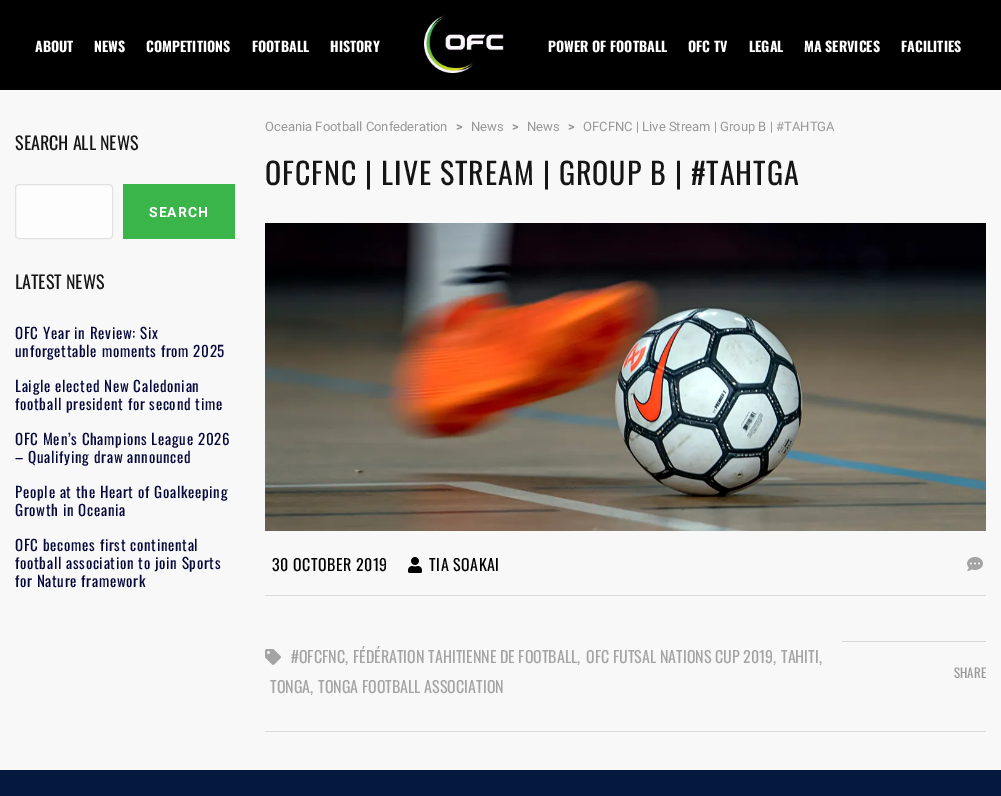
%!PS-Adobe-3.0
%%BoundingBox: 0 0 1001 796
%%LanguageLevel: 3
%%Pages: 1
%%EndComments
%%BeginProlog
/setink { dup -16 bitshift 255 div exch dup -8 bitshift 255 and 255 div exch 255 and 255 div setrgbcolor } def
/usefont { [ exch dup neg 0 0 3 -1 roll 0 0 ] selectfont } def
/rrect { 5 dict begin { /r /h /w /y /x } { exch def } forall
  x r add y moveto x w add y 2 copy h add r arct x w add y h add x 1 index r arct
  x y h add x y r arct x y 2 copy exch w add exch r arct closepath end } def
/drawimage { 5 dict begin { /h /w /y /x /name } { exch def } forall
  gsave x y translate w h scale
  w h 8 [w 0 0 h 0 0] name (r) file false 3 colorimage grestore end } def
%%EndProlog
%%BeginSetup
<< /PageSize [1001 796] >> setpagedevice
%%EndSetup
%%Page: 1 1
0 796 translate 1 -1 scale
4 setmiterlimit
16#03193E setink
0 0 1001 796 rectfill
16#F8F8F8 setink
0 90 1001 680 rectfill
16#000000 setink
0 0 1001 90 rectfill
/Oswald-Bold 14 usefont
16#FFFFFF setink
[
    [(ABOUT) 35 52]
    [(NEWS) 94 52]
    [(COMPETITIONS) 146 52]
    [(FOOTBALL) 252 52]
    [(HISTORY) 330 52]
] { aload pop moveto show } forall
(img1.raw) 424 15 80 58 drawimage
[
    [(POWER OF FOOTBALL) 548 52]
    [(OFC TV) 688 52]
    [(LEGAL) 749 52]
    [(MA SERVICES) 804 52]
    [(FACILITIES) 901 52]
] { aload pop moveto show } forall
/Oswald-Regular 18 usefont
16#151515 setink
15 150 moveto (SEARCH ALL NEWS) show
16#FDFDFD setink
15.5 184.5 97 54 3.5 rrect gsave fill grestore
16#E2E2E2 setink
stroke
16#39B54A setink
123 184 112 55 rectfill
/Roboto-Bold 14 usefont
16#FFFFFF setink
149 217 moveto 1 0 (SEARCH) ashow
/Oswald-Regular 18 usefont
16#151515 setink
15 289 moveto (LATEST NEWS) show
/Oswald-Regular 15 usefont
16#06083B setink
15 339 moveto 0.7 0 (OFC Year in Review: Six) ashow
15 357 moveto 0.7 0 (unforgettable moments from 2025) ashow
15 392 moveto 0.7 0 (Laigle elected New Caledonian) ashow
15 410 moveto 0.7 0 (football president for second time) ashow
15 445 moveto 0.7 0 (OFC Men’s Champions League 2026) ashow
15 463 moveto 0.7 0 (– Qualifying draw announced) ashow
15 498 moveto 0.7 0 (People at the Heart of Goalkeeping) ashow
15 516 moveto 0.7 0 (Growth in Oceania) ashow
15 551 moveto 0.7 0 (OFC becomes first continental) ashow
15 569 moveto 0.7 0 (football association to join Sports) ashow
15 587 moveto 0.7 0 (for Nature framework) ashow
/Roboto-Regular 13 usefont
16#999999 setink
265 131 moveto (Oceania Football Confederation) show
/Roboto-Bold 13 usefont
456 131 moveto 0.7 0 (>) ashow
/Roboto-Regular 13 usefont
471 131 moveto (News) show
/Roboto-Bold 13 usefont
512 131 moveto 0.7 0 (>) ashow
/Roboto-Regular 13 usefont
527 131 moveto (News) show
/Roboto-Bold 13 usefont
568 131 moveto 0.7 0 (>) ashow
/Roboto-Regular 13 usefont
583 131 moveto (OFCFNC | Live Stream | Group B | #TAHTGA) show
/Oswald-Regular 30 usefont
16#151515 setink
265 185 moveto 1 0 (OFCFNC | LIVE STREAM | GROUP B | #TAHTGA) ashow
(img2.raw) 265 223 721 308 drawimage
16#D9D9D9 setink
265 595 721 1 rectfill
/Oswald-Regular 16 usefont
16#000000 setink
272 571 moveto 0.5 0 (30 OCTOBER 2019) ashow
(img3.raw) 408 557 14 16 drawimage
429 571 moveto 0.5 0 (TIA SOAKAI) ashow
(img4.raw) 967 557 16 14 drawimage
16#D9D9D9 setink
265 731 721 1 rectfill
(img5.raw) 265 649 16 16 drawimage
16#A4A4A4 setink
[
    [(#OFCFNC,) 291 663]
    [(FÉDÉRATION TAHITIENNE DE FOOTBALL,) 353 663]
    [(OFC FUTSAL NATIONS CUP 2019,) 586 663]
    [(TAHITI,) 781 663]
    [(TONGA,) 270 693]
    [(TONGA FOOTBALL ASSOCIATION) 318 693]
] { aload pop moveto show } forall
16#D8D8D8 setink
842 641 144 1 rectfill
/Oswald-Regular 13 usefont
16#999999 setink
954 678 moveto (SHARE) show
showpage
%%EOF
